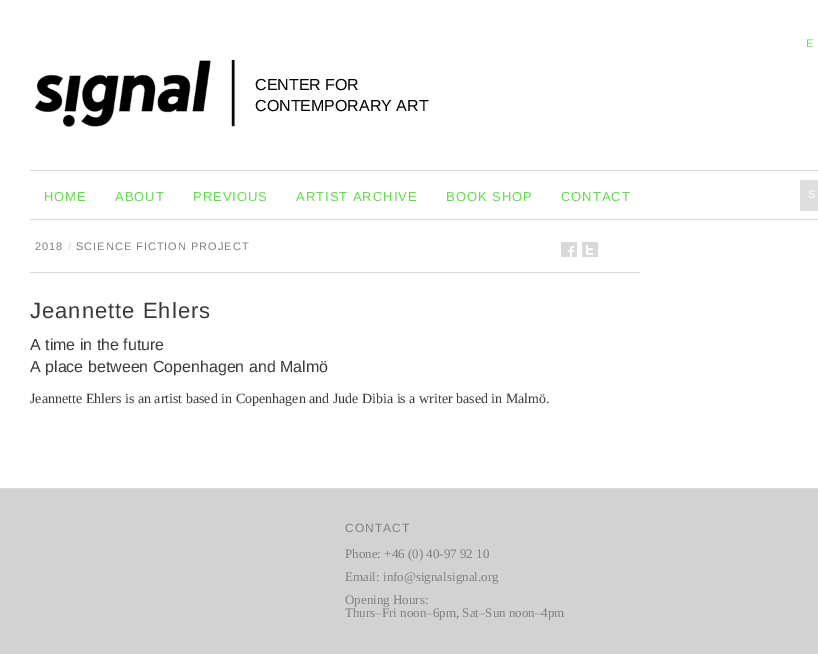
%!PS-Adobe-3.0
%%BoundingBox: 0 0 818 654
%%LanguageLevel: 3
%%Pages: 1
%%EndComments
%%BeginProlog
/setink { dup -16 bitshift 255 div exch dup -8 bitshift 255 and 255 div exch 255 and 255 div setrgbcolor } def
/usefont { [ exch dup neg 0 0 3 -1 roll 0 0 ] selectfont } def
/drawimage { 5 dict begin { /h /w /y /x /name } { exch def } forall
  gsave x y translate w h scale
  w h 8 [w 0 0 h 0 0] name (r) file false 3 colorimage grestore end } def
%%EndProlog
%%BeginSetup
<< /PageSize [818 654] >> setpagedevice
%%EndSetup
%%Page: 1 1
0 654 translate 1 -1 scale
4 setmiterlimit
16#FFFFFF setink
0 0 818 654 rectfill
/LiberationSans-Regular 11 usefont
16#60DD49 setink
806 47 moveto 1 0 (E) ashow
(img1.raw) 35 60 200 67 drawimage
/LiberationSans-Regular 16 usefont
16#000000 setink
255 90 moveto (CENTER FOR) show
255 111 moveto (CONTEMPORARY ART) show
16#D9D9D9 setink
30 170 788 1 rectfill
30 219 788 1 rectfill
/LiberationSans-Regular 13 usefont
16#60DD49 setink
44 201 moveto 1 0 (HOME) ashow
115 201 moveto 1 0 (ABOUT) ashow
193 201 moveto 1 0 (PREVIOUS) ashow
296 201 moveto 1 0 (ARTIST ARCHIVE) ashow
446 201 moveto 1 0 (BOOK SHOP) ashow
561 201 moveto 1 0 (CONTACT) ashow
16#DEDEDE setink
800 180 18 31 rectfill
/LiberationSans-Regular 11 usefont
16#FFFFFF setink
808 198 moveto 1 0 (S) ashow
16#D9D9D9 setink
30 272 610 1 rectfill
16#808080 setink
35 250 moveto 1 0 (2018) ashow
16#D9D9D9 setink
68 250 moveto 1 0 (/) ashow
16#808080 setink
76 250 moveto 1 0 (SCIENCE FICTION PROJECT) ashow
(img2.raw) 561 242 16 15 drawimage
(img3.raw) 582 242 16 15 drawimage
/LiberationSans-Regular 22 usefont
16#3A3A39 setink
30 318 moveto 1 0 (Jeannette Ehlers) ashow
/LiberationSans-Regular 16 usefont
30 350 moveto (A time in the future) show
30 372 moveto (A place between Copenhagen and Malmö) show
/LiberationSerif-Regular 14 usefont
30 403 moveto (Jeannette Ehlers is an artist based in Copenhagen and Jude Dibia is a writer based in Malmö.) show
16#D2D2D2 setink
0 489 818 165 rectfill
16#D9D9D9 setink
0 488 818 1 rectfill
/LiberationSans-Regular 12 usefont
16#808080 setink
345 532 moveto 1 0 (CONTACT) ashow
/LiberationSerif-Regular 13 usefont
[
    [(Phone: +46 \(0\) 40-97 92 10) 345 558]
    [(Email: info@signalsignal.org) 345 581]
    [(Opening Hours:) 345 604]
    [(Thurs–Fri noon–6pm, Sat–Sun noon–4pm) 345 617]
] { aload pop moveto show } forall
showpage
%%EOF
